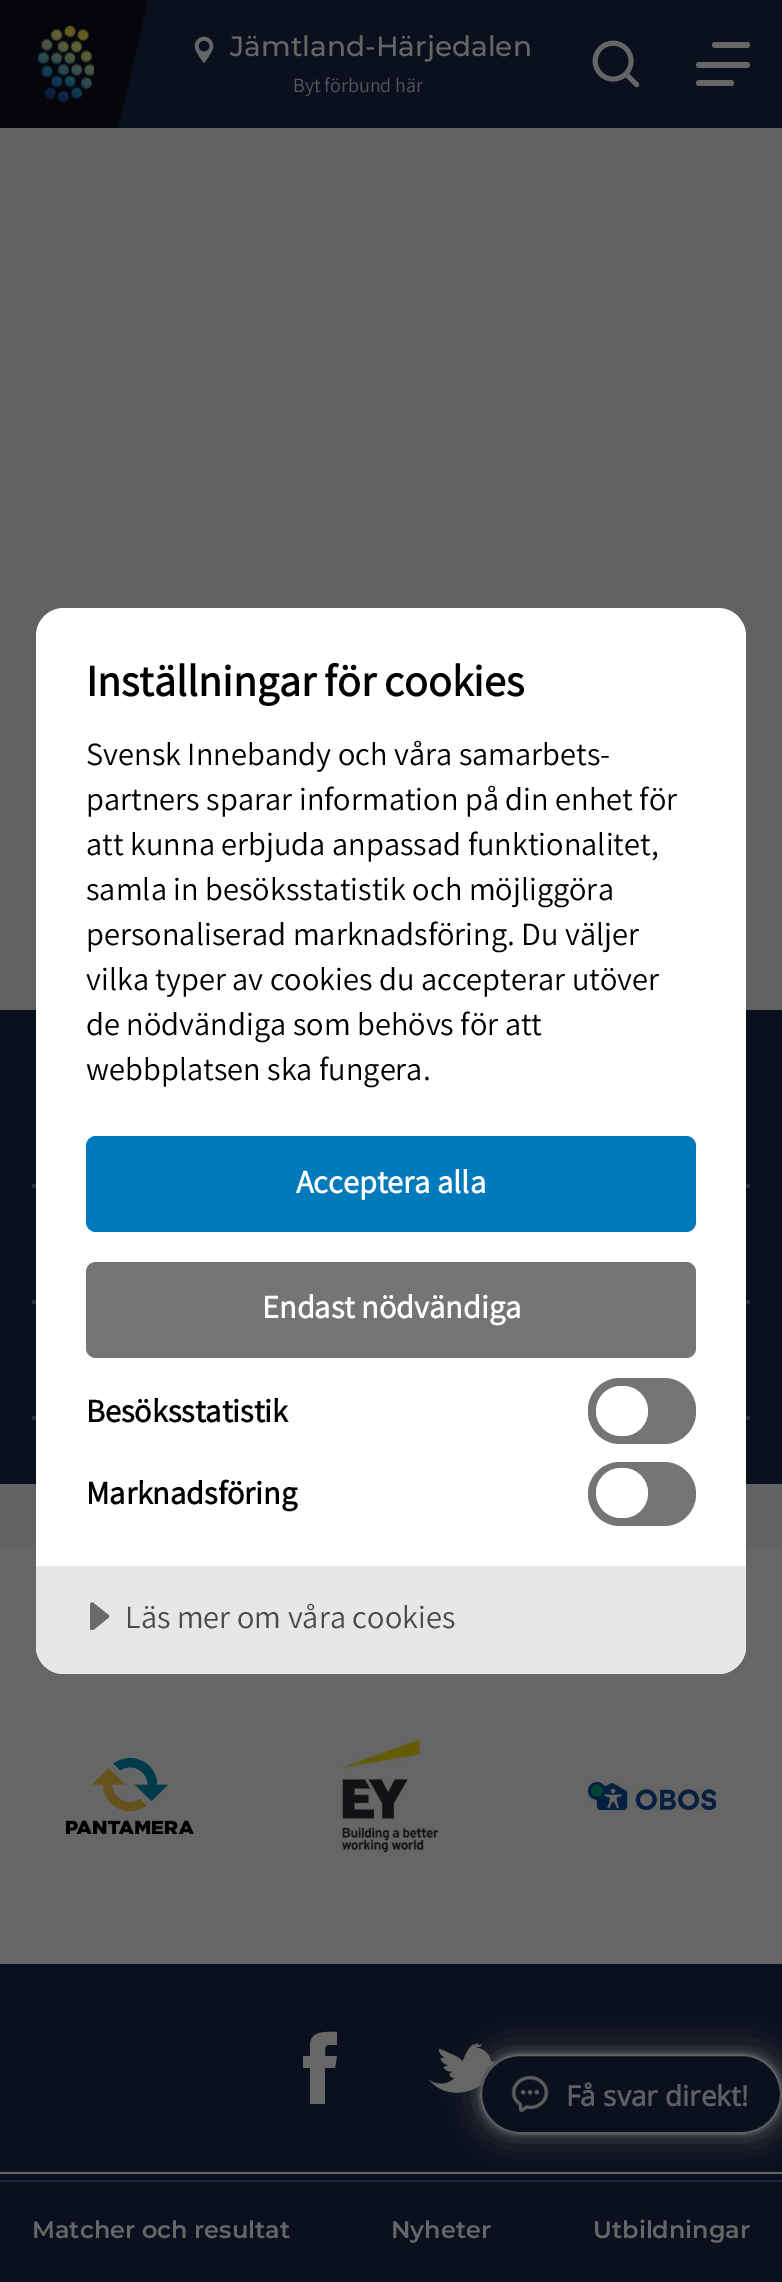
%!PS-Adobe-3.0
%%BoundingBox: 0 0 782 2282
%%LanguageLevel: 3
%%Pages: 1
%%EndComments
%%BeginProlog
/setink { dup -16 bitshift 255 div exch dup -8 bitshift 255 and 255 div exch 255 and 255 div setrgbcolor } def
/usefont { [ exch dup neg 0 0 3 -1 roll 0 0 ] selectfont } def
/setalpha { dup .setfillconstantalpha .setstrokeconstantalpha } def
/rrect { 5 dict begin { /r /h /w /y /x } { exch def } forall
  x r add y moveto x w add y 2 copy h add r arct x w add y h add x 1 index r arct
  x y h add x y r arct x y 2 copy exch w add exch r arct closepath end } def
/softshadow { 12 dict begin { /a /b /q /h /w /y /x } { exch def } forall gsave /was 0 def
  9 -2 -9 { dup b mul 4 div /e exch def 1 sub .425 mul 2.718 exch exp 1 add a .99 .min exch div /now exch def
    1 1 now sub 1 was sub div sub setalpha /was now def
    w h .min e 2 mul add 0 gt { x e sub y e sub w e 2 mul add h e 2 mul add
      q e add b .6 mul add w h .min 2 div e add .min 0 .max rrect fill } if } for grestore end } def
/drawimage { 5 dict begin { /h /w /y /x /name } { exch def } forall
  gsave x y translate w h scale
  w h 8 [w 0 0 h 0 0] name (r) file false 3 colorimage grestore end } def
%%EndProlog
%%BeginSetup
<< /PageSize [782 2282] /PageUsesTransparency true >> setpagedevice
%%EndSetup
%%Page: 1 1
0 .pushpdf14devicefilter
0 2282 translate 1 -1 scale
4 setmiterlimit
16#616264 setink
0 0 782 2282 rectfill
16#0B101E setink
118 0 664 128 rectfill
16#04060C setink
0 0 moveto 0 128 lineto 118 128 lineto 148 0 lineto closepath fill
(img1.raw) 38 26 56 76 drawimage
(img2.raw) 194 36 20 28 drawimage
/Montserrat-Medium 28 usefont
16#666666 setink
230 56 moveto (Jämtland-Härjedalen) show
/Assistant-Regular 20 usefont
16#545558 setink
293 92 moveto (Byt förbund här) show
(img3.raw) 592 40 48 48 drawimage
16#666666 setink
712 42 38 6 3 rrect fill
696 62 54 6 3 rrect fill
696 80 38 6 3 rrect fill
[
    [0 1010 782 474 16#0B101E]
    [32 1184 718 4 16#252E45]
    [32 1300 718 4 16#252E45]
    [32 1416 718 4 16#252E45]
    [0 1548 782 416 16#666666]
] { aload pop setink rectfill } forall
16#FFFFFF setink
36 608 710 1066 28 rrect fill
/Assistant-Bold 44 usefont
16#000000 setink
86 696 moveto (Inställningar för cookies) show
/Assistant-Regular 32.4 usefont
[
    [(Svensk Innebandy och våra samarbets-) 86 765]
    [(partners sparar information på din enhet för) 86 810]
    [(att kunna erbjuda anpassad funktionalitet,) 86 855]
    [(samla in besöksstatistik och möjliggöra) 86 900]
    [(personaliserad marknadsföring. Du väljer) 86 945]
    [(vilka typer av cookies du accepterar utöver) 86 990]
    [(de nödvändiga som behövs för att) 86 1035]
    [(webbplatsen ska fungera.) 86 1080]
] { aload pop moveto show } forall
16#017ABC setink
86 1136 610 96 10 rrect fill
/Assistant-Bold 32.4 usefont
16#FFFFFF setink
296 1193 moveto (Acceptera alla) show
16#757575 setink
86 1262 610 96 10 rrect fill
16#FFFFFF setink
262 1318 moveto (Endast nödvändiga) show
16#000000 setink
86 1422 moveto (Besöksstatistik) show
16#757575 setink
588 1378 108 66 32 rrect fill
16#FFFFFF setink
596 1386 52 50 25 rrect fill
16#000000 setink
86 1504 moveto (Marknadsföring) show
16#757575 setink
588 1462 108 64 32 rrect fill
16#FFFFFF setink
596 1468 52 50 25 rrect fill
16#E7E7E7 setink
36 1566 moveto 746 1566 lineto 746 1646 lineto 746 1661.5 733.5 1674 718 1674 curveto 64 1674 lineto 48.5 1674 36 1661.5 36 1646 curveto closepath fill
(img4.raw) 90 1602 20 28 drawimage
/Assistant-Regular 32.4 usefont
16#4B4B4B setink
125 1628 moveto (Läs mer om våra cookies) show
(img5.raw) 66 1758 128 76 drawimage
(img6.raw) 342 1738 96 115 drawimage
(img7.raw) 588 1782 128 28 drawimage
16#0B101E setink
0 1964 782 208 rectfill
16#666666 setink
310 2046 moveto 310 2056 lineto 303 2056 lineto 303 2068 lineto 310 2068 lineto 310 2104 lineto 325 2104 lineto 325 2068 lineto 335 2068 lineto 337 2056 lineto 325 2056 lineto 325 2043 325 2045 337 2045 curveto 337 2032 lineto 326 2032 310 2030 310 2046 curveto closepath fill
(img8.raw) 428 2043 71 50 drawimage
480 2054 302 80 40 4 1 softshadow
[
    [0 2174 782 6 16#0B101E]
    [0 2172 782 2 16#666666]
    [0 2182 782 100 16#0B101E]
    [0 2180 782 2 16#1D2741]
] { aload pop setink rectfill } forall
16#666666 setink
474 2048 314 92 46 15 0.5 softshadow
16#0B101E setink
480 2054 302 80 40 rrect fill
0.9 setalpha
16#666666 setink
2 setlinewidth
481 2055 300 78 39 rrect stroke
1 setalpha
(img9.raw) 511 2075 38 38 drawimage
/OpenSans-Bold 28 usefont
16#5E6063 setink
566 2106 moveto (Få svar direkt!) show
/Montserrat-SemiBold 24 usefont
16#666666 setink
[
    [(Matcher och resultat) 32 2238]
    [(Nyheter) 391 2238]
    [(Utbildningar) 593 2238]
] { aload pop moveto show } forall
.poppdf14devicefilter showpage
%%EOF
